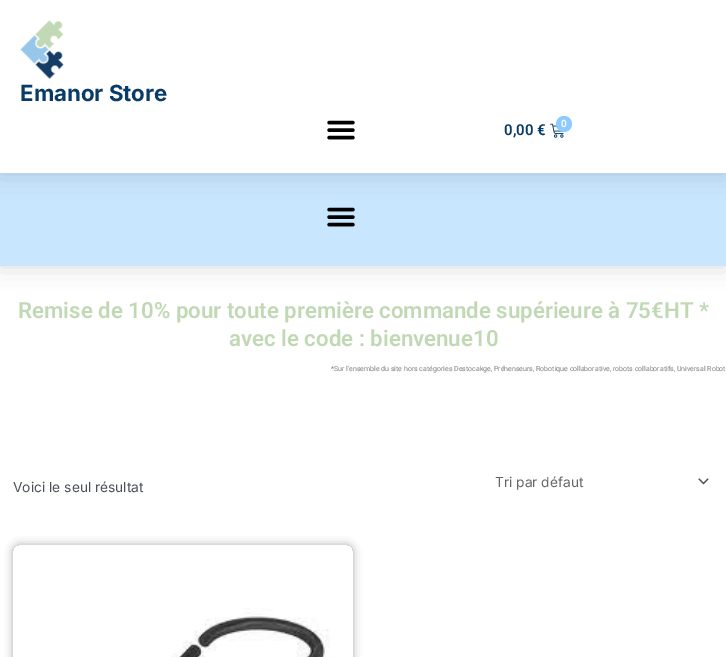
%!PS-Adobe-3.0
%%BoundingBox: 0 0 726 657
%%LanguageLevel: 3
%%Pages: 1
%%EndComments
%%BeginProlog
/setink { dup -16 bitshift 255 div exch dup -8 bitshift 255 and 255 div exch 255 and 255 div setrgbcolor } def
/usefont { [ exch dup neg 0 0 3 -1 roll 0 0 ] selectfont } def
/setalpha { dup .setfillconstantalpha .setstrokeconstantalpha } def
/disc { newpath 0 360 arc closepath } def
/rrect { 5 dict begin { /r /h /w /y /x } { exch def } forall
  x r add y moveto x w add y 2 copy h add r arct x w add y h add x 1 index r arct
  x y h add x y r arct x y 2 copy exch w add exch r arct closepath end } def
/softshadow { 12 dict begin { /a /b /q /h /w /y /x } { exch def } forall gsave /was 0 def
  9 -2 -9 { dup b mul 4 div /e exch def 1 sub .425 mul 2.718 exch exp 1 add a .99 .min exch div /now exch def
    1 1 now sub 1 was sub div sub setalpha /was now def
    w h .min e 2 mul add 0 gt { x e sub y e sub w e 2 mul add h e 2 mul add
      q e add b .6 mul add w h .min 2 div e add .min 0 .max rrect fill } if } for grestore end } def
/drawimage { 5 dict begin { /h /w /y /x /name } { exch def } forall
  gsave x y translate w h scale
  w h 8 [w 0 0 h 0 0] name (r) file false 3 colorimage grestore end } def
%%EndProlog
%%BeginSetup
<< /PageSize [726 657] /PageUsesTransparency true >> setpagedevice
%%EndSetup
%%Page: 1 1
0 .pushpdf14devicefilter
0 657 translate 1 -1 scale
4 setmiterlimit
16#FFFFFF setink
0 0 726 657 rectfill
16#000000 setink
0 173 726 93 0 12 0.15 softshadow
16#C9E6FF setink
0 173 726 93 rectfill
(img4.raw) 327 207 28 20 drawimage
16#000000 setink
0 0 726 173 0 12 0.15 softshadow
16#FFFFFF setink
0 0 726 173 rectfill
(img1.raw) 20 20 44 59 drawimage
/Inter-Bold 22.25 usefont
16#083B66 setink
20 101 moveto (Emanor Store) show
(img2.raw) 327 120 28 20 drawimage
/Roboto-SemiBold 15 usefont
504 135 moveto (0,00 €) show
(img3.raw) 550 123 14 15 drawimage
16#8DCAFF setink
564 124 8 disc fill
/Roboto-SemiBold 10 usefont
16#FFFFFF setink
561 127 moveto (0) show
/Roboto-SemiBold 22.25 usefont
16#C0D9B4 setink
18 318 moveto (Remise de 10% pour toute première commande supérieure à 75€HT *) show
229 346 moveto (avec le code : bienvenue10) show
/Roboto-Regular 7 usefont
16#808080 setink
331 371 moveto (*Sur l’ensemble du site hors catégories Destocakge, Préhenseurs, Robotique collaborative, robots collaboratifs, Universal Robot) show
/Inter-Regular 13.75 usefont
16#4B4F58 setink
13 492 moveto (Voici le seul résultat) show
(img5.raw) 698 478 11 7 drawimage
16#666666 setink
495 487 moveto (Tri par défaut) show
gsave
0 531 moveto 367 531 lineto 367 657 lineto 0 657 lineto closepath 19 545 moveto 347 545 lineto 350.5 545 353 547.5 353 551 curveto 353 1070 lineto 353 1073.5 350.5 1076 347 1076 curveto 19 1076 lineto 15.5 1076 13 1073.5 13 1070 curveto 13 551 lineto 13 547.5 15.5 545 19 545 curveto closepath eoclip newpath
16#000000 setink
15 547 336 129 4 5 0.5 softshadow
grestore
(img6.raw) 171 608 159 49 drawimage
.poppdf14devicefilter showpage
%%EOF
